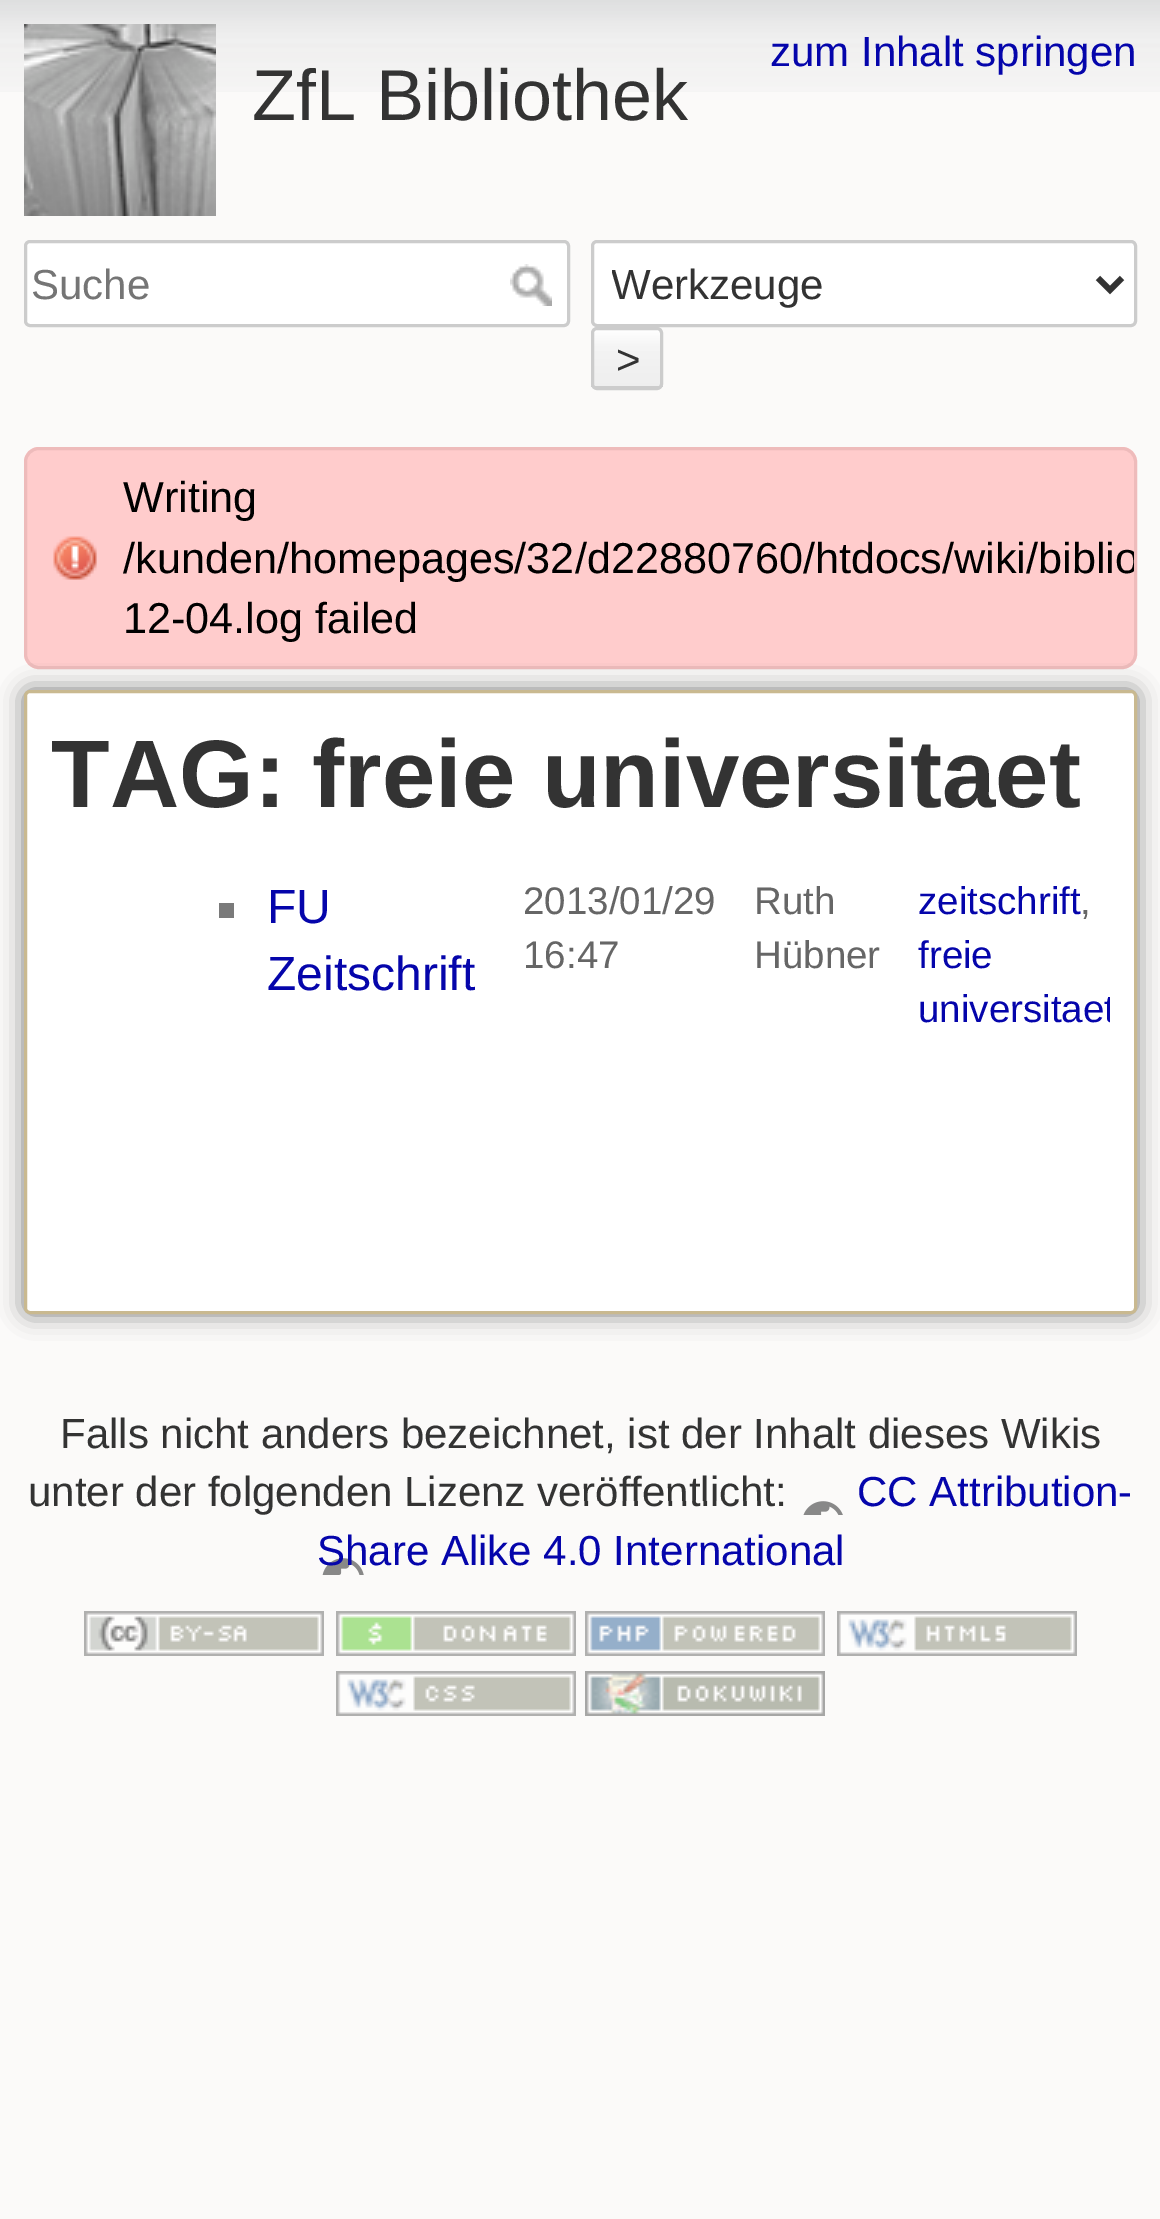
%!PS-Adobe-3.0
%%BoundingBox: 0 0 1160 2219
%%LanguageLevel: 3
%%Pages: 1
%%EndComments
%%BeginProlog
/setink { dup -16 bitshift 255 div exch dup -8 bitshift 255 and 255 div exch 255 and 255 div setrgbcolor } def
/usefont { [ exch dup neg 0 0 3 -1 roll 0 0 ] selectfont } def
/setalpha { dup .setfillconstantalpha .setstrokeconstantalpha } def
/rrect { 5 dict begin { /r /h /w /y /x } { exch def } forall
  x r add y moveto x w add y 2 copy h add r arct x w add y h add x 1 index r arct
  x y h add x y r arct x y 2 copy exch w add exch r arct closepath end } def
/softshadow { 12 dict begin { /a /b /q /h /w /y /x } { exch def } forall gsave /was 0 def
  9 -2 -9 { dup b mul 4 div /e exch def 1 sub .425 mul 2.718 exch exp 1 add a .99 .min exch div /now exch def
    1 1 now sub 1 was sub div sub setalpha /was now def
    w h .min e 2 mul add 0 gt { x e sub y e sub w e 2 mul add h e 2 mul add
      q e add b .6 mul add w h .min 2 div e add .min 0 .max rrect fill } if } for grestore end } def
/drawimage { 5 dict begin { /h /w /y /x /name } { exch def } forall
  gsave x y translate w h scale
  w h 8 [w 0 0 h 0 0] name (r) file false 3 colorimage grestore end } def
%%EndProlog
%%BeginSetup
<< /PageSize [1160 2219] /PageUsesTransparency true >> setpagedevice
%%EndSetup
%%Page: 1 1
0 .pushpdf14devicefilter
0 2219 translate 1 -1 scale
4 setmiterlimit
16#FBFAF9 setink
0 0 1160 2219 rectfill
(img1.raw) 0 0 1160 92 drawimage
/LiberationSans-Regular 42 usefont
16#0505AB setink
770 66 moveto (zum Inhalt springen) show
(img2.raw) 24 24 192 192 drawimage
/LiberationSans-Regular 72 usefont
16#333333 setink
252 120 moveto (ZfL Bibliothek) show
16#FFFFFF setink
25.5 241.5 543 84 4.5 rrect gsave fill grestore
16#CCCCCC setink
3 setlinewidth
stroke
/LiberationSans-Regular 42 usefont
16#757575 setink
31 299 moveto (Suche) show
(img3.raw) 510 264 42 42 drawimage
16#FFFFFF setink
592.5 241.5 543 84 4.5 rrect gsave fill grestore
16#CCCCCC setink
stroke
16#333333 setink
6 setlinewidth
1098 278 moveto 1110 290 lineto 1122 278 lineto stroke
gsave
612 258 471 54 rectclip
611 299 moveto (Werkzeuge) show
grestore
gsave
591 327 72 63 6 rrect clip newpath
gsave 591 330 moveto 663 330 lineto 663 387 lineto 591 387 lineto closepath clip newpath
<< /ShadingType 2 /ColorSpace /DeviceRGB /Coords [627 330 627 387] /Extend [true true] /Function << /FunctionType 3 /Domain [0 1] /Functions [<< /FunctionType 2 /Domain [0 1] /C0 [1 1 1] /C1 [0.957 0.957 0.957] /N 1 >> << /FunctionType 2 /Domain [0 1] /C0 [0.957 0.957 0.957] /C1 [0.933 0.933 0.933] /N 1 >> << /FunctionType 2 /Domain [0 1] /C0 [0.8 0.8 0.8] /C1 [0.8 0.8 0.8] /N 1 >>] /Bounds [0.3 0.99] /Encode [0 1 0 1 0 1] >> >> shfill grestore
grestore
16#CCCCCC setink
3 setlinewidth
592.5 328.5 69 60 4.5 rrect stroke
16#333333 setink
616 374 moveto (>) show
16#FFCCCC setink
24 447 1113 222 15 rrect fill
(img4.raw) 53 536 44 44 drawimage
16#EEBBBB setink
25.5 448.5 1110 219 13.5 rrect stroke
/LiberationSans-Regular 43.2 usefont
16#000000 setink
123 512 moveto (Writing) show
gsave
27 450 1107 216 12 rrect clip newpath
123 573 moveto (/kunden/homepages/32/d22880760/htdocs/wiki/biblio) show
grestore
123 633 moveto (12-04.log failed) show
16#7A7A7A setink
24 690 1113 624 6 12 1 softshadow
16#FFFFFF setink
25.5 691.5 1110 621 4.5 rrect gsave fill grestore
16#C9B990 setink
stroke
/LiberationSans-Bold 96 usefont
16#333333 setink
51 807 moveto (TAG: freie universitaet) show
16#7A7A7A setink
219 903 15 15 rectfill
/LiberationSans-Regular 48 usefont
16#0505AB setink
267 923 moveto (FU) show
267 990 moveto (Zeitschrift) show
/LiberationSans-Regular 38.5 usefont
16#666666 setink
[
    [(2013/01/29) 523 914]
    [(16:47) 523 968]
    [(Ruth) 754 914]
    [(Hübner) 754 968]
] { aload pop moveto show } forall
16#0505AB setink
918 914 moveto (zeitschrift) show
16#666666 setink
1080 914 moveto (,) show
16#0505AB setink
918 968 moveto (freie) show
gsave
51 876 1059 159 rectclip
918 1022 moveto (universitaet) show
grestore
/LiberationSans-Regular 42 usefont
16#333333 setink
60 1448 moveto (Falls nicht anders bezeichnet, ist der Inhalt dieses Wikis) show
28 1506 moveto (unter der folgenden Lizenz veröffentlicht:) show
16#0505AB setink
857 1506 moveto (CC Attribution-) show
(img5.raw) 322 1501 521 74 drawimage
317 1565 moveto (Share Alike 4.0 International) show
(img6.raw) 84 1611 240 45 drawimage
(img7.raw) 336 1611 240 45 drawimage
(img8.raw) 585 1611 240 45 drawimage
(img9.raw) 837 1611 240 45 drawimage
(img10.raw) 336 1671 240 45 drawimage
(img11.raw) 585 1671 240 45 drawimage
.poppdf14devicefilter showpage
%%EOF
